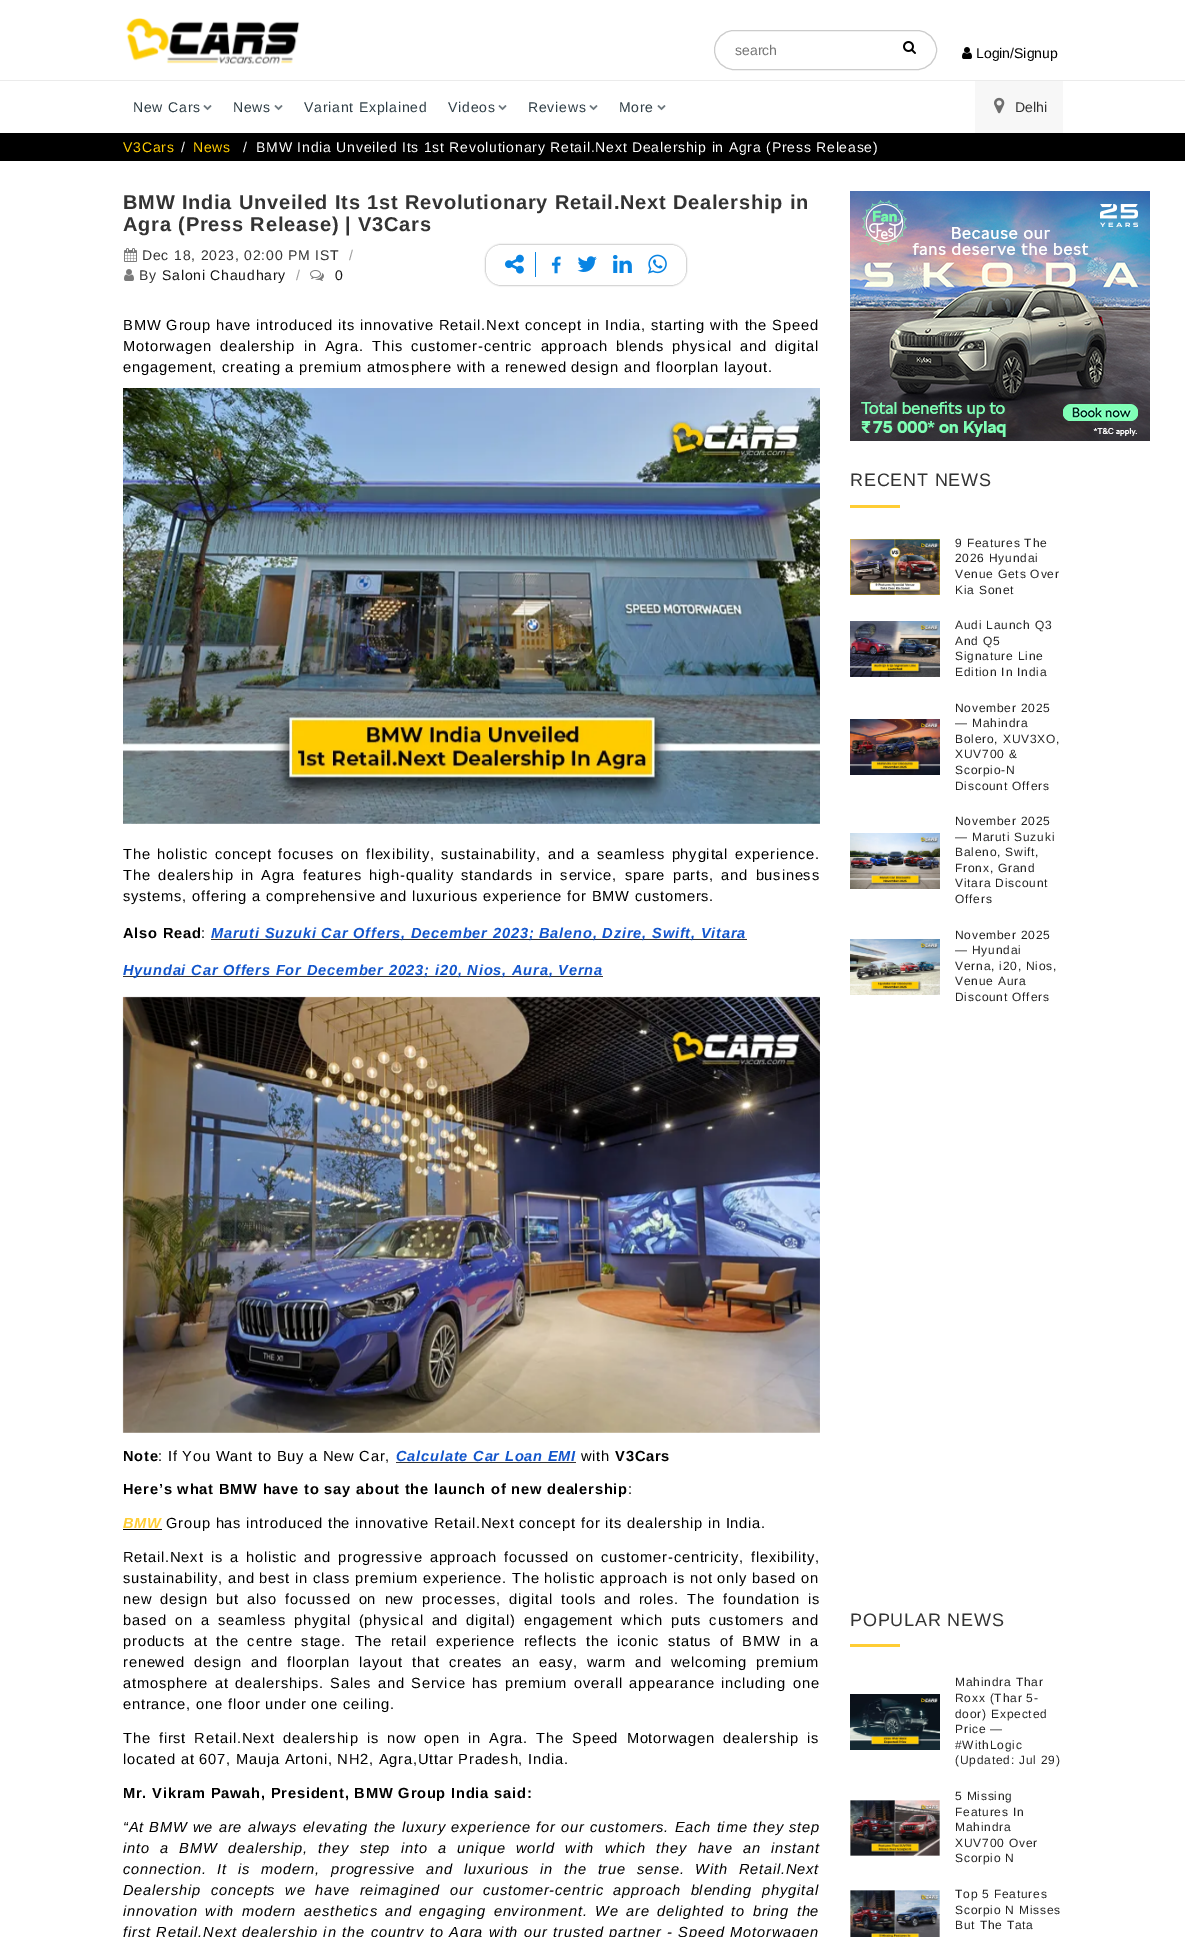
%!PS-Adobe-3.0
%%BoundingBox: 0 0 1185 1937
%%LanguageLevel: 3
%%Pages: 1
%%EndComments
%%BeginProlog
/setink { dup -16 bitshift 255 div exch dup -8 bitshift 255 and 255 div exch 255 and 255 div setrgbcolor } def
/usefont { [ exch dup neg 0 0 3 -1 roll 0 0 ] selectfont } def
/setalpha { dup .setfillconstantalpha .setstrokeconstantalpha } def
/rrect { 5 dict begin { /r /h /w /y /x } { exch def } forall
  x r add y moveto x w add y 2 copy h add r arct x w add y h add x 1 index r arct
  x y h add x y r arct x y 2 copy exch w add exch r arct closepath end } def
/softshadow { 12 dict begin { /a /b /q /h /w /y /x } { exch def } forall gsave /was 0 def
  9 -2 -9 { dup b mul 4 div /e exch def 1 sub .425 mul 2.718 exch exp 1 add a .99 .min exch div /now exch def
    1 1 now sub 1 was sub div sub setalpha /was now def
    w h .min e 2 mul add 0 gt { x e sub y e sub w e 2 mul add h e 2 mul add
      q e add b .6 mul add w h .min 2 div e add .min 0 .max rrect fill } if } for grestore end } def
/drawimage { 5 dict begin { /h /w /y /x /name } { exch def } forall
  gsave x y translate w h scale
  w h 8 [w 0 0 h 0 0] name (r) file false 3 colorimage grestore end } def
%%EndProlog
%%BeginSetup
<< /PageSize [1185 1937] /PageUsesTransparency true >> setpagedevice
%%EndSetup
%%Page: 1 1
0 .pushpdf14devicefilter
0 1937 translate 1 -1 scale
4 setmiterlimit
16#FFFFFF setink
0 0 1185 1937 rectfill
(img1.raw) 126 18 174 46 drawimage
16#CCCCCC setink
714.5 30.5 222 39 19.5 rrect stroke
/LiberationSans-Regular 14 usefont
16#757575 setink
735 55 moveto (search) show
(img2.raw) 903 41 13 13 drawimage
(img3.raw) 962 47 10 12 drawimage
16#000000 setink
976 58 moveto (Login/Signup) show
0 133 1185 28 rectfill
gsave
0 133 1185 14 rectclip
0 88 1185 53 0 5 0.15 softshadow
grestore
16#EBEBEB setink
0 80 1185 1 rectfill
16#2D3C44 setink
133 112 moveto 0.8 0 (New Cars) ashow
(img4.raw) 203 105 9 6 drawimage
233 112 moveto 0.8 0 (News) ashow
(img4.raw) 274 105 9 6 drawimage
304 112 moveto 0.8 0 (Variant Explained) ashow
448 112 moveto 0.8 0 (Videos) ashow
(img4.raw) 498 105 9 6 drawimage
528 112 moveto 0.8 0 (Reviews) ashow
(img4.raw) 589 105 9 6 drawimage
619 112 moveto 0.8 0 (More) ashow
(img4.raw) 657 105 9 6 drawimage
16#F7F7F7 setink
975 81 88 52 rectfill
(img5.raw) 994 97 11 17 drawimage
16#333333 setink
1015 112 moveto (Delhi) show
16#FFCC00 setink
123 152 moveto 0.8 0 (V3Cars) ashow
16#FFFFFF setink
181 152 moveto 0.8 0 (/) ashow
16#FFCC00 setink
193 152 moveto 0.8 0 (News) ashow
16#FFFFFF setink
243 152 moveto 0.8 0 (/) ashow
256 152 moveto 0.8 0 (BMW India Unveiled Its 1st Revolutionary Retail.Next Dealership in Agra \(Press Release\)) ashow
/LiberationSans-Bold 20 usefont
16#333333 setink
123 209 moveto 0.8 0 (BMW India Unveiled Its 1st Revolutionary Retail.Next Dealership in) ashow
123 231 moveto 0.8 0 (Agra \(Press Release\) | V3Cars) ashow
(img6.raw) 124 248 13 14 drawimage
/LiberationSans-Regular 14 usefont
142 260 moveto 0.8 0 (Dec 18, 2023, 02:00 PM IST) ashow
16#999999 setink
349 260 moveto 0.8 0 (/) ashow
(img7.raw) 124 269 10 12 drawimage
16#333333 setink
139 280 moveto 0.8 0 (By) ashow
16#141414 setink
162 280 moveto 0.8 0 (Saloni Chaudhary) ashow
16#999999 setink
296 280 moveto 0.8 0 (/) ashow
(img8.raw) 310 270 14 11 drawimage
16#141414 setink
335 280 moveto 0.8 0 (0) ashow
16#000000 setink
486 245 200 40 15 1 0.5 softshadow
16#FFFFFF setink
486 245 200 40 15 rrect fill
(img9.raw) 505 254 19 20 drawimage
16#0984E3 setink
535 252 1 25 rectfill
(img10.raw) 551 256 10 18 drawimage
(img11.raw) 577 256 20 16 drawimage
(img12.raw) 613 255 19 18 drawimage
(img13.raw) 648 254 19 20 drawimage
/LiberationSans-Regular 14.65 usefont
16#000000 setink
123 330 moveto 0.3 0 32 0.8 0 (BMW Group have introduced its innovative Retail.Next concept in India, starting with the Speed) awidthshow
123 351 moveto 3.4 0 32 0.8 0 (Motorwagen dealership in Agra. This customer-centric approach blends physical and digital) awidthshow
123 372 moveto 0.8 0 (engagement, creating a premium atmosphere with a renewed design and floorplan layout.) ashow
(img14.raw) 123 388 697 436 drawimage
123 859 moveto 1.75 0 32 0.8 0 (The holistic concept focuses on flexibility, sustainability, and a seamless phygital experience.) awidthshow
123 880 moveto 2.5 0 32 0.8 0 (The dealership in Agra features high-quality standards in service, spare parts, and business) awidthshow
123 901 moveto 0.8 0 (systems, offering a comprehensive and luxurious experience for BMW customers.) ashow
/LiberationSans-Bold 14.65 usefont
123 938 moveto 0.8 0 (Also Read) ashow
/LiberationSans-Regular 14.65 usefont
201 938 moveto 0.8 0 (:) ashow
16#333333 setink
211 939 536 1 rectfill
/LiberationSans-BoldItalic 14.65 usefont
16#1155CC setink
211 938 moveto 0.8 0 (Maruti Suzuki Car Offers, December 2023; Baleno, Dzire, Swift, Vitara) ashow
16#333333 setink
123 976 480 1 rectfill
16#1155CC setink
123 975 moveto 0.8 0 (Hyundai Car Offers For December 2023; i20, Nios, Aura, Verna) ashow
(img15.raw) 122 996 698 437 drawimage
/LiberationSans-Bold 14.65 usefont
16#000000 setink
123 1461 moveto 0.8 0 (Note) ashow
/LiberationSans-Regular 14.65 usefont
158 1461 moveto 0.8 0 (: If You Want to Buy a New Car,) ashow
/LiberationSans-BoldItalic 14.65 usefont
16#1155CC setink
396 1461 moveto 0.8 0 (Calculate Car Loan EMI) ashow
16#333333 setink
396 1462 180 1 rectfill
/LiberationSans-Regular 14.65 usefont
16#000000 setink
581 1461 moveto 0.8 0 (with) ashow
/LiberationSans-Bold 14.65 usefont
615 1461 moveto 0.8 0 (V3Cars) ashow
123 1494 moveto 0.8 0 (Here’s what BMW have to say about the launch of new dealership) ashow
/LiberationSans-Regular 14.65 usefont
628 1494 moveto 0.8 0 (:) ashow
/LiberationSans-BoldItalic 14.65 usefont
16#FFCD34 setink
123 1528 moveto 0.8 0 (BMW) ashow
16#000000 setink
123 1529 39 1 rectfill
/LiberationSans-Regular 14.65 usefont
166 1528 moveto 0.8 0 (Group has introduced the innovative Retail.Next concept for its dealership in India.) ashow
123 1562 moveto 2.25 0 32 0.8 0 (Retail.Next is a holistic and progressive approach focussed on customer-centricity, flexibility,) awidthshow
123 1583 moveto 0.8 0 (sustainability, and best in class premium experience. The holistic approach is not only based on) ashow
123 1604 moveto 3.25 0 32 0.8 0 (new design but also focussed on new processes, digital tools and roles. The foundation is) awidthshow
123 1625 moveto 3.1 0 32 0.8 0 (based on a seamless phygital \(physical and digital\) engagement which puts customers and) awidthshow
123 1646 moveto 3.6 0 32 0.8 0 (products at the centre stage. The retail experience reflects the iconic status of BMW in a) awidthshow
123 1667 moveto 4.25 0 32 0.8 0 (renewed design and floorplan layout that creates an easy, warm and welcoming premium) awidthshow
123 1688 moveto 1.75 0 32 0.8 0 (atmosphere at dealerships. Sales and Service has premium overall appearance including one) awidthshow
123 1709 moveto 0.8 0 (entrance, one floor under one ceiling.) ashow
123 1743 moveto 3.25 0 32 0.8 0 (The first Retail.Next dealership is now open in Agra. The Speed Motorwagen dealership is) awidthshow
123 1764 moveto 0.8 0 (located at 607, Mauja Artoni, NH2, Agra,Uttar Pradesh, India.) ashow
/LiberationSans-Bold 14.65 usefont
123 1798 moveto 0.8 0 (Mr. Vikram Pawah, President, BMW Group India said:) ashow
/LiberationSans-Italic 14.65 usefont
123 1832 moveto 0.5 0 32 0.8 0 (“At BMW we are always elevating the luxury experience for our customers. Each time they step) awidthshow
123 1853 moveto 5.4 0 32 0.8 0 (into a BMW dealership, they step into a unique world with which they have an instant) awidthshow
123 1874 moveto 5.9 0 32 0.8 0 (connection. It is modern, progressive and luxurious in the true sense. With Retail.Next) awidthshow
123 1895 moveto 4.75 0 32 0.8 0 (Dealership concepts we have reimagined our customer-centric approach blending phygital) awidthshow
123 1916 moveto 2.6 0 32 0.8 0 (innovation with modern aesthetics and engaging environment. We are delighted to bring the) awidthshow
123 1937 moveto 0.8 0 32 0.8 0 (first Retail.Next dealership in the country to Agra with our trusted partner - Speed Motorwagen) awidthshow
(img16.raw) 850 191 300 250 drawimage
/LiberationSans-Regular 18 usefont
16#333333 setink
850 486 moveto 0.8 0 (RECENT NEWS) ashow
16#FFCD34 setink
850 505 50 3 rectfill
(img17.raw) 850 539 90 56 drawimage
/LiberationSans-Regular 12 usefont
16#232323 setink
955 547 moveto 0.8 0 (9 Features The) ashow
955 562 moveto 0.8 0 (2026 Hyundai) ashow
955 578 moveto 0.8 0 (Venue Gets Over) ashow
955 594 moveto 0.8 0 (Kia Sonet) ashow
(img18.raw) 850 621 90 56 drawimage
955 629 moveto 0.8 0 (Audi Launch Q3) ashow
955 645 moveto 0.8 0 (And Q5) ashow
955 660 moveto 0.8 0 (Signature Line) ashow
955 676 moveto 0.8 0 (Edition In India) ashow
(img19.raw) 850 719 90 56 drawimage
955 712 moveto 0.8 0 (November 2025) ashow
955 727 moveto 0.8 0 (— Mahindra) ashow
955 743 moveto 0.8 0 (Bolero, XUV3XO,) ashow
955 758 moveto 0.8 0 (XUV700 &) ashow
955 774 moveto 0.8 0 (Scorpio-N) ashow
955 790 moveto 0.8 0 (Discount Offers) ashow
(img20.raw) 850 833 90 56 drawimage
955 825 moveto 0.8 0 (November 2025) ashow
955 841 moveto 0.8 0 (— Maruti Suzuki) ashow
955 856 moveto 0.8 0 (Baleno, Swift,) ashow
955 872 moveto 0.8 0 (Fronx, Grand) ashow
955 887 moveto 0.8 0 (Vitara Discount) ashow
955 903 moveto 0.8 0 (Offers) ashow
(img21.raw) 850 939 90 56 drawimage
955 939 moveto 0.8 0 (November 2025) ashow
955 954 moveto 0.8 0 (— Hyundai) ashow
955 970 moveto 0.8 0 (Verna, i20, Nios,) ashow
955 985 moveto 0.8 0 (Venue Aura) ashow
955 1001 moveto 0.8 0 (Discount Offers) ashow
/LiberationSans-Regular 18 usefont
16#333333 setink
850 1626 moveto 0.8 0 (POPULAR NEWS) ashow
16#FFCD34 setink
850 1644 50 3 rectfill
(img22.raw) 850 1694 90 56 drawimage
/LiberationSans-Regular 12 usefont
16#232323 setink
955 1686 moveto 0.8 0 (Mahindra Thar) ashow
955 1702 moveto 0.8 0 (Roxx \(Thar 5-) ashow
955 1718 moveto 0.8 0 (door\) Expected) ashow
955 1733 moveto 0.8 0 (Price —) ashow
955 1749 moveto 0.8 0 (#WithLogic) ashow
955 1764 moveto 0.8 0 (\(Updated: Jul 29\)) ashow
(img23.raw) 850 1800 90 56 drawimage
955 1800 moveto 0.8 0 (5 Missing) ashow
955 1816 moveto 0.8 0 (Features In) ashow
955 1831 moveto 0.8 0 (Mahindra) ashow
955 1847 moveto 0.8 0 (XUV700 Over) ashow
955 1862 moveto 0.8 0 (Scorpio N) ashow
(img24.raw) 850 1890 90 47 drawimage
955 1898 moveto 0.8 0 (Top 5 Features) ashow
955 1914 moveto 0.8 0 (Scorpio N Misses) ashow
955 1929 moveto 0.8 0 (But The Tata) ashow
.poppdf14devicefilter showpage
%%EOF
